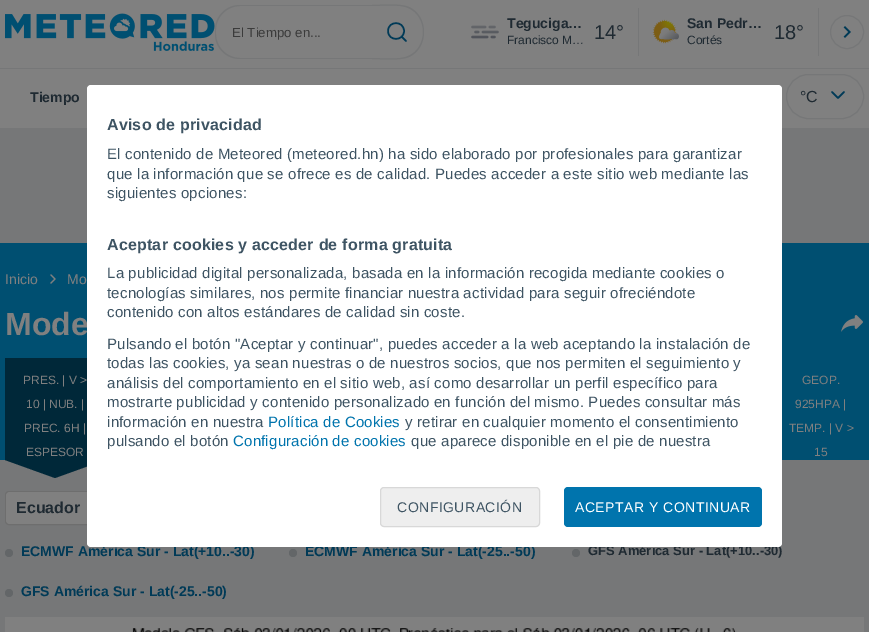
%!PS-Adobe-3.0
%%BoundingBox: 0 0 869 632
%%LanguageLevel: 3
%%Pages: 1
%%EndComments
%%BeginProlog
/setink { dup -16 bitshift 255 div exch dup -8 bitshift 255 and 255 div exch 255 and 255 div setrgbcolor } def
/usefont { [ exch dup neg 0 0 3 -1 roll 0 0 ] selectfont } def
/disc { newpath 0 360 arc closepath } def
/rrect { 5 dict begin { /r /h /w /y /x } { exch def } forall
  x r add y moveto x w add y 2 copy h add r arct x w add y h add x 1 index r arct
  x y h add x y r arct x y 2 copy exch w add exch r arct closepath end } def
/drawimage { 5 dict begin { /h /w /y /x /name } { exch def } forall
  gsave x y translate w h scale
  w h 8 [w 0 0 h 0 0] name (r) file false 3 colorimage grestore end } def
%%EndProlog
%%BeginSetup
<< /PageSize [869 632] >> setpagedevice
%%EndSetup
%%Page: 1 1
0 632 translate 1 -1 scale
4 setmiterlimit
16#767778 setink
0 0 869 632 rectfill
16#808080 setink
0 0 869 128 rectfill
16#767778 setink
0 68 869 1 rectfill
(img1.raw) 5 13 210 38 drawimage
240 5 moveto 371 5 lineto 371 59 lineto 240 59 lineto 226 59 215 48 215 34 curveto 215 30 lineto 215 16 226 5 240 5 curveto closepath 240 6 moveto 371 6 lineto 371 58 lineto 240 58 lineto 227 58 216 47 216 34 curveto 216 30 lineto 216 17 227 6 240 6 curveto closepath eofill
/LiberationSans-Regular 13.25 usefont
16#3B3B3B setink
232 37 moveto (El Tiempo en...) show
16#767778 setink
371 5 moveto 381 5 400 3 409 7 curveto 429 16 429 48 409 57 curveto 400 61 381 59 371 59 curveto closepath 371 6 moveto 381 6 400 4 408 8 curveto 428 16 428 48 408 56 curveto 400 60 381 58 371 58 curveto closepath eofill
16#003A57 setink
1.5 setlinewidth
1 setlinecap
1 setlinejoin
406 41 moveto 401.5 36.5 lineto 404 31 moveto 404 41.5 388 41.5 388 31 curveto 388 20.5 404 20.5 404 31 curveto closepath stroke
(img2.raw) 471 25 28 14 drawimage
/LiberationSans-Bold 14 usefont
16#1F2A32 setink
507 28 moveto (Teguciga…) show
/LiberationSans-Regular 12 usefont
507 44 moveto (Francisco M…) show
/LiberationSans-Regular 20 usefont
594 39 moveto (14°) show
16#767778 setink
638 8 1 48 rectfill
(img3.raw) 652 19 27 25 drawimage
/LiberationSans-Bold 14 usefont
16#1F2A32 setink
687 28 moveto (San Pedr…) show
/LiberationSans-Regular 12 usefont
687 44 moveto (Cortés) show
/LiberationSans-Regular 20 usefont
774 39 moveto (18°) show
16#767778 setink
818 8 1 48 rectfill
1 setlinewidth
0 setlinecap
0 setlinejoin
847 32 16.5 disc stroke
(img4.raw) 843 26 8 12 drawimage
/LiberationSans-Bold 14 usefont
16#1F2A32 setink
30 102 moveto (Tiempo) show
16#767778 setink
786.5 74.5 77 44 22 rrect stroke
/LiberationSans-Regular 16 usefont
16#1F2A32 setink
800 102 moveto (°C) show
16#003A57 setink
1.5 setlinewidth
1 setlinecap
1 setlinejoin
832 92 moveto 838 98 lineto 844 92 lineto stroke
16#004F71 setink
0 243 869 217 rectfill
/LiberationSans-Bold 32 usefont
16#808080 setink
5 335 moveto (Mode) show
16#002839 setink
5 460 moveto 105 460 lineto 55 478 lineto closepath fill
16#6E6E6E setink
1 setlinewidth
0 setlinecap
0 setlinejoin
5.5 491.5 401 33 3.5 rrect stroke
16#808080 setink
6 492 400 32 4 rrect fill
/LiberationSans-Bold 14 usefont
16#003A57 setink
21 556 moveto (ECMWF América Sur - Lat\(+10..-30\)) show
305 556 moveto (ECMWF América Sur - Lat\(-25..-50\)) show
/LiberationSans-Bold 13 usefont
16#1F2A32 setink
588 555 moveto (GFS América Sur - Lat\(+10..-30\)) show
16#FFFFFF setink
87 85 695 462 4 rrect fill
/LiberationSans-Bold 16 usefont
16#3E5463 setink
107 130 moveto 0.2 0 (Aviso de privacidad) ashow
/LiberationSans-Regular 15 usefont
107 159 moveto 0.2 0 (El contenido de Meteored \(meteored.hn\) ha sido elaborado por profesionales para garantizar) ashow
107 179 moveto 0.2 0 (que la información que se ofrece es de calidad. Puedes acceder a este sitio web mediante las) ashow
107 198 moveto 0.2 0 (siguientes opciones:) ashow
/LiberationSans-Bold 16 usefont
107 250 moveto 0.2 0 (Aceptar cookies y acceder de forma gratuita) ashow
/LiberationSans-Regular 15 usefont
107 278 moveto 0.2 0 (La publicidad digital personalizada, basada en la información recogida mediante cookies o) ashow
107 298 moveto 0.2 0 (tecnologías similares, nos permite financiar nuestra actividad para seguir ofreciéndote) ashow
107 317 moveto 0.2 0 (contenido con altos estándares de calidad sin coste.) ashow
107 349 moveto 0.2 0 (Pulsando el botón "Aceptar y continuar", puedes acceder a la web aceptando la instalación de) ashow
107 368 moveto 0.2 0 (todas las cookies, ya sean nuestras o de nuestros socios, que nos permiten el seguimiento y) ashow
107 388 moveto 0.2 0 (análisis del comportamiento en el sitio web, así como desarrollar un perfil específico para) ashow
107 407 moveto 0.2 0 (mostrarte publicidad y contenido personalizado en función del mismo. Puedes consultar más) ashow
107 427 moveto 0.2 0 (información en nuestra) ashow
16#0074AD setink
268 427 moveto 0.2 0 (Política de Cookies) ashow
16#3E5463 setink
405 427 moveto 0.2 0 (y retirar en cualquier momento el consentimiento) ashow
107 446 moveto 0.2 0 (pulsando el botón) ashow
16#0074AD setink
233 446 moveto 0.2 0 (Configuración de cookies) ashow
16#3E5463 setink
411 446 moveto 0.2 0 (que aparece disponible en el pie de nuestra) ashow
16#EEEEEE setink
380.5 487.5 159 39 3.5 rrect gsave fill grestore
16#D8D8D8 setink
stroke
/LiberationSans-Regular 14 usefont
16#3E5463 setink
397 512 moveto 0.5 0 (CONFIGURACIÓN) ashow
16#0074AD setink
564 487 198 40 4 rrect fill
16#FFFFFF setink
575 512 moveto 0.5 0 (ACEPTAR Y CONTINUAR) ashow
16#808080 setink
5 284 moveto (Inicio) show
(img5.raw) 50 274 6 10 drawimage
67 284 moveto (Mo) show
(img6.raw) 841 315 22 17 drawimage
16#002839 setink
5 358 82 102 rectfill
/LiberationSans-Regular 12 usefont
16#808080 setink
[
    [(PRES. | V >) 23 384]
    [(10 | NUB. |) 26 408]
    [(PREC. 6H |) 24 432]
    [(ESPESOR) 26 456]
    [(GEOP.) 802 384]
    [(925HPA |) 795 408]
    [(TEMP. | V >) 789 432]
    [(15) 814 456]
] { aload pop moveto show } forall
/LiberationSans-Bold 16 usefont
16#1F2A32 setink
16 513 moveto (Ecuador) show
16#636668 setink
9 553 4 disc fill
293 553 4 disc fill
576 553 4 disc fill
9 593 4 disc fill
/LiberationSans-Bold 14 usefont
16#003A57 setink
21 596 moveto (GFS América Sur - Lat\(-25..-50\)) show
(img7.raw) 5 617 859 15 drawimage
showpage
%%EOF
